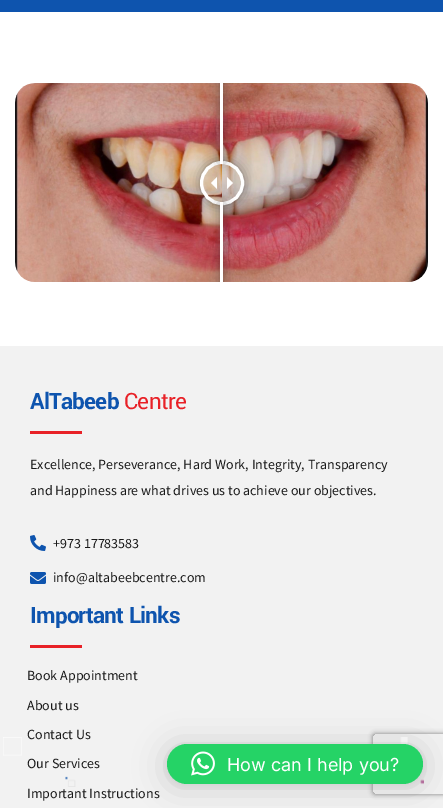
%!PS-Adobe-3.0
%%BoundingBox: 0 0 443 808
%%LanguageLevel: 3
%%Pages: 1
%%EndComments
%%BeginProlog
/setink { dup -16 bitshift 255 div exch dup -8 bitshift 255 and 255 div exch 255 and 255 div setrgbcolor } def
/usefont { [ exch dup neg 0 0 3 -1 roll 0 0 ] selectfont } def
/setalpha { dup .setfillconstantalpha .setstrokeconstantalpha } def
/disc { newpath 0 360 arc closepath } def
/rrect { 5 dict begin { /r /h /w /y /x } { exch def } forall
  x r add y moveto x w add y 2 copy h add r arct x w add y h add x 1 index r arct
  x y h add x y r arct x y 2 copy exch w add exch r arct closepath end } def
/softshadow { 12 dict begin { /a /b /q /h /w /y /x } { exch def } forall gsave /was 0 def
  9 -2 -9 { dup b mul 4 div /e exch def 1 sub .425 mul 2.718 exch exp 1 add a .99 .min exch div /now exch def
    1 1 now sub 1 was sub div sub setalpha /was now def
    w h .min e 2 mul add 0 gt { x e sub y e sub w e 2 mul add h e 2 mul add
      q e add b .6 mul add w h .min 2 div e add .min 0 .max rrect fill } if } for grestore end } def
/drawimage { 5 dict begin { /h /w /y /x /name } { exch def } forall
  gsave x y translate w h scale
  w h 8 [w 0 0 h 0 0] name (r) file false 3 colorimage grestore end } def
%%EndProlog
%%BeginSetup
<< /PageSize [443 808] /PageUsesTransparency true >> setpagedevice
%%EndSetup
%%Page: 1 1
0 .pushpdf14devicefilter
0 808 translate 1 -1 scale
4 setmiterlimit
16#FFFFFF setink
0 0 443 808 rectfill
(img1.raw) 15 83 207 199 drawimage
(img2.raw) 222 83 206 199 drawimage
gsave
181 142 moveto 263 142 lineto 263 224 lineto 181 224 lineto closepath 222 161 moveto 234 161 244 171 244 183 curveto 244 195 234 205 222 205 curveto 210 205 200 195 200 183 curveto 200 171 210 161 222 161 curveto closepath eoclip newpath
16#333333 setink
200 161 44 44 22 6 0.5 softshadow
grestore
3 setlinewidth
222 183 20.5 disc stroke
217 177 moveto 217 189 lineto 211 183 lineto closepath 227 189 moveto 227 177 lineto 233 183 lineto closepath fill
gsave
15 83 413 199 rectclip
16#333333 setink
220 -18 3 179 0 6 0.5 softshadow
grestore
16#0E54AE setink
0 0 443 12 rectfill
16#FFFFFF setink
220 161 moveto 220 164 lineto 223 164 lineto 223 161 lineto closepath fill
220 83 3 78 rectfill
gsave
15 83 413 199 rectclip
16#333333 setink
220 205 3 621 0 6 0.5 softshadow
grestore
220 202 moveto 220 205 lineto 223 205 lineto 223 202 lineto closepath fill
220 205 3 77 rectfill
16#F2F2F2 setink
0 346 443 462 rectfill
/Yantramanav-Bold 25 usefont
16#0E54AE setink
30 409 moveto -0.75 0 (AlTabeeb) ashow
/Yantramanav-Regular 25 usefont
16#E82127 setink
124 409 moveto -0.75 0 (Centre) ashow
30 431 52 3 rectfill
/SourceSansPro-Regular 14 usefont
16#181818 setink
30 469 moveto (Excellence, Perseverance, Hard Work, Integrity, Transparency) show
30 495 moveto (and Happiness are what drives us to achieve our objectives.) show
(img3.raw) 30 535 16 16 drawimage
53 548 moveto (+973 17783583) show
(img4.raw) 30 572 16 12 drawimage
53 582 moveto (info@altabeebcentre.com) show
/Yantramanav-Bold 25 usefont
16#0E54AE setink
30 623 moveto -0.75 0 (Important Links) ashow
16#E82127 setink
30 645 52 3 rectfill
/SourceSansPro-Regular 14 usefont
16#181818 setink
27 680 moveto (Book Appointment) show
27 710 moveto (About us) show
(img5.raw) 3 737 421 50 drawimage
[
    [(Contact Us) 27 739]
    [(Our Services) 27 768]
    [(Important Instructions) 27 798]
] { aload pop moveto show } forall
gsave
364 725 moveto 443 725 lineto 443 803 lineto 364 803 lineto closepath 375 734 moveto 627 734 lineto 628 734 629 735 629 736 curveto 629 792 lineto 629 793 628 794 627 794 curveto 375 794 lineto 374 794 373 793 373 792 curveto 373 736 lineto 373 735 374 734 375 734 curveto closepath eoclip newpath
16#808080 setink
373 734 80 60 2 2.5 1 softshadow
grestore
16#000000 setink
167 746 256 40 20 16 0.16 softshadow
167 745 256 40 20 3 0.06 softshadow
16#25D366 setink
167 744 256 40 20 rrect fill
(img6.raw) 191 751 24 25 drawimage
/Inter-Regular 18 usefont
16#FFFFFF setink
227 771 moveto (How can I help you?) show
.poppdf14devicefilter showpage
%%EOF
